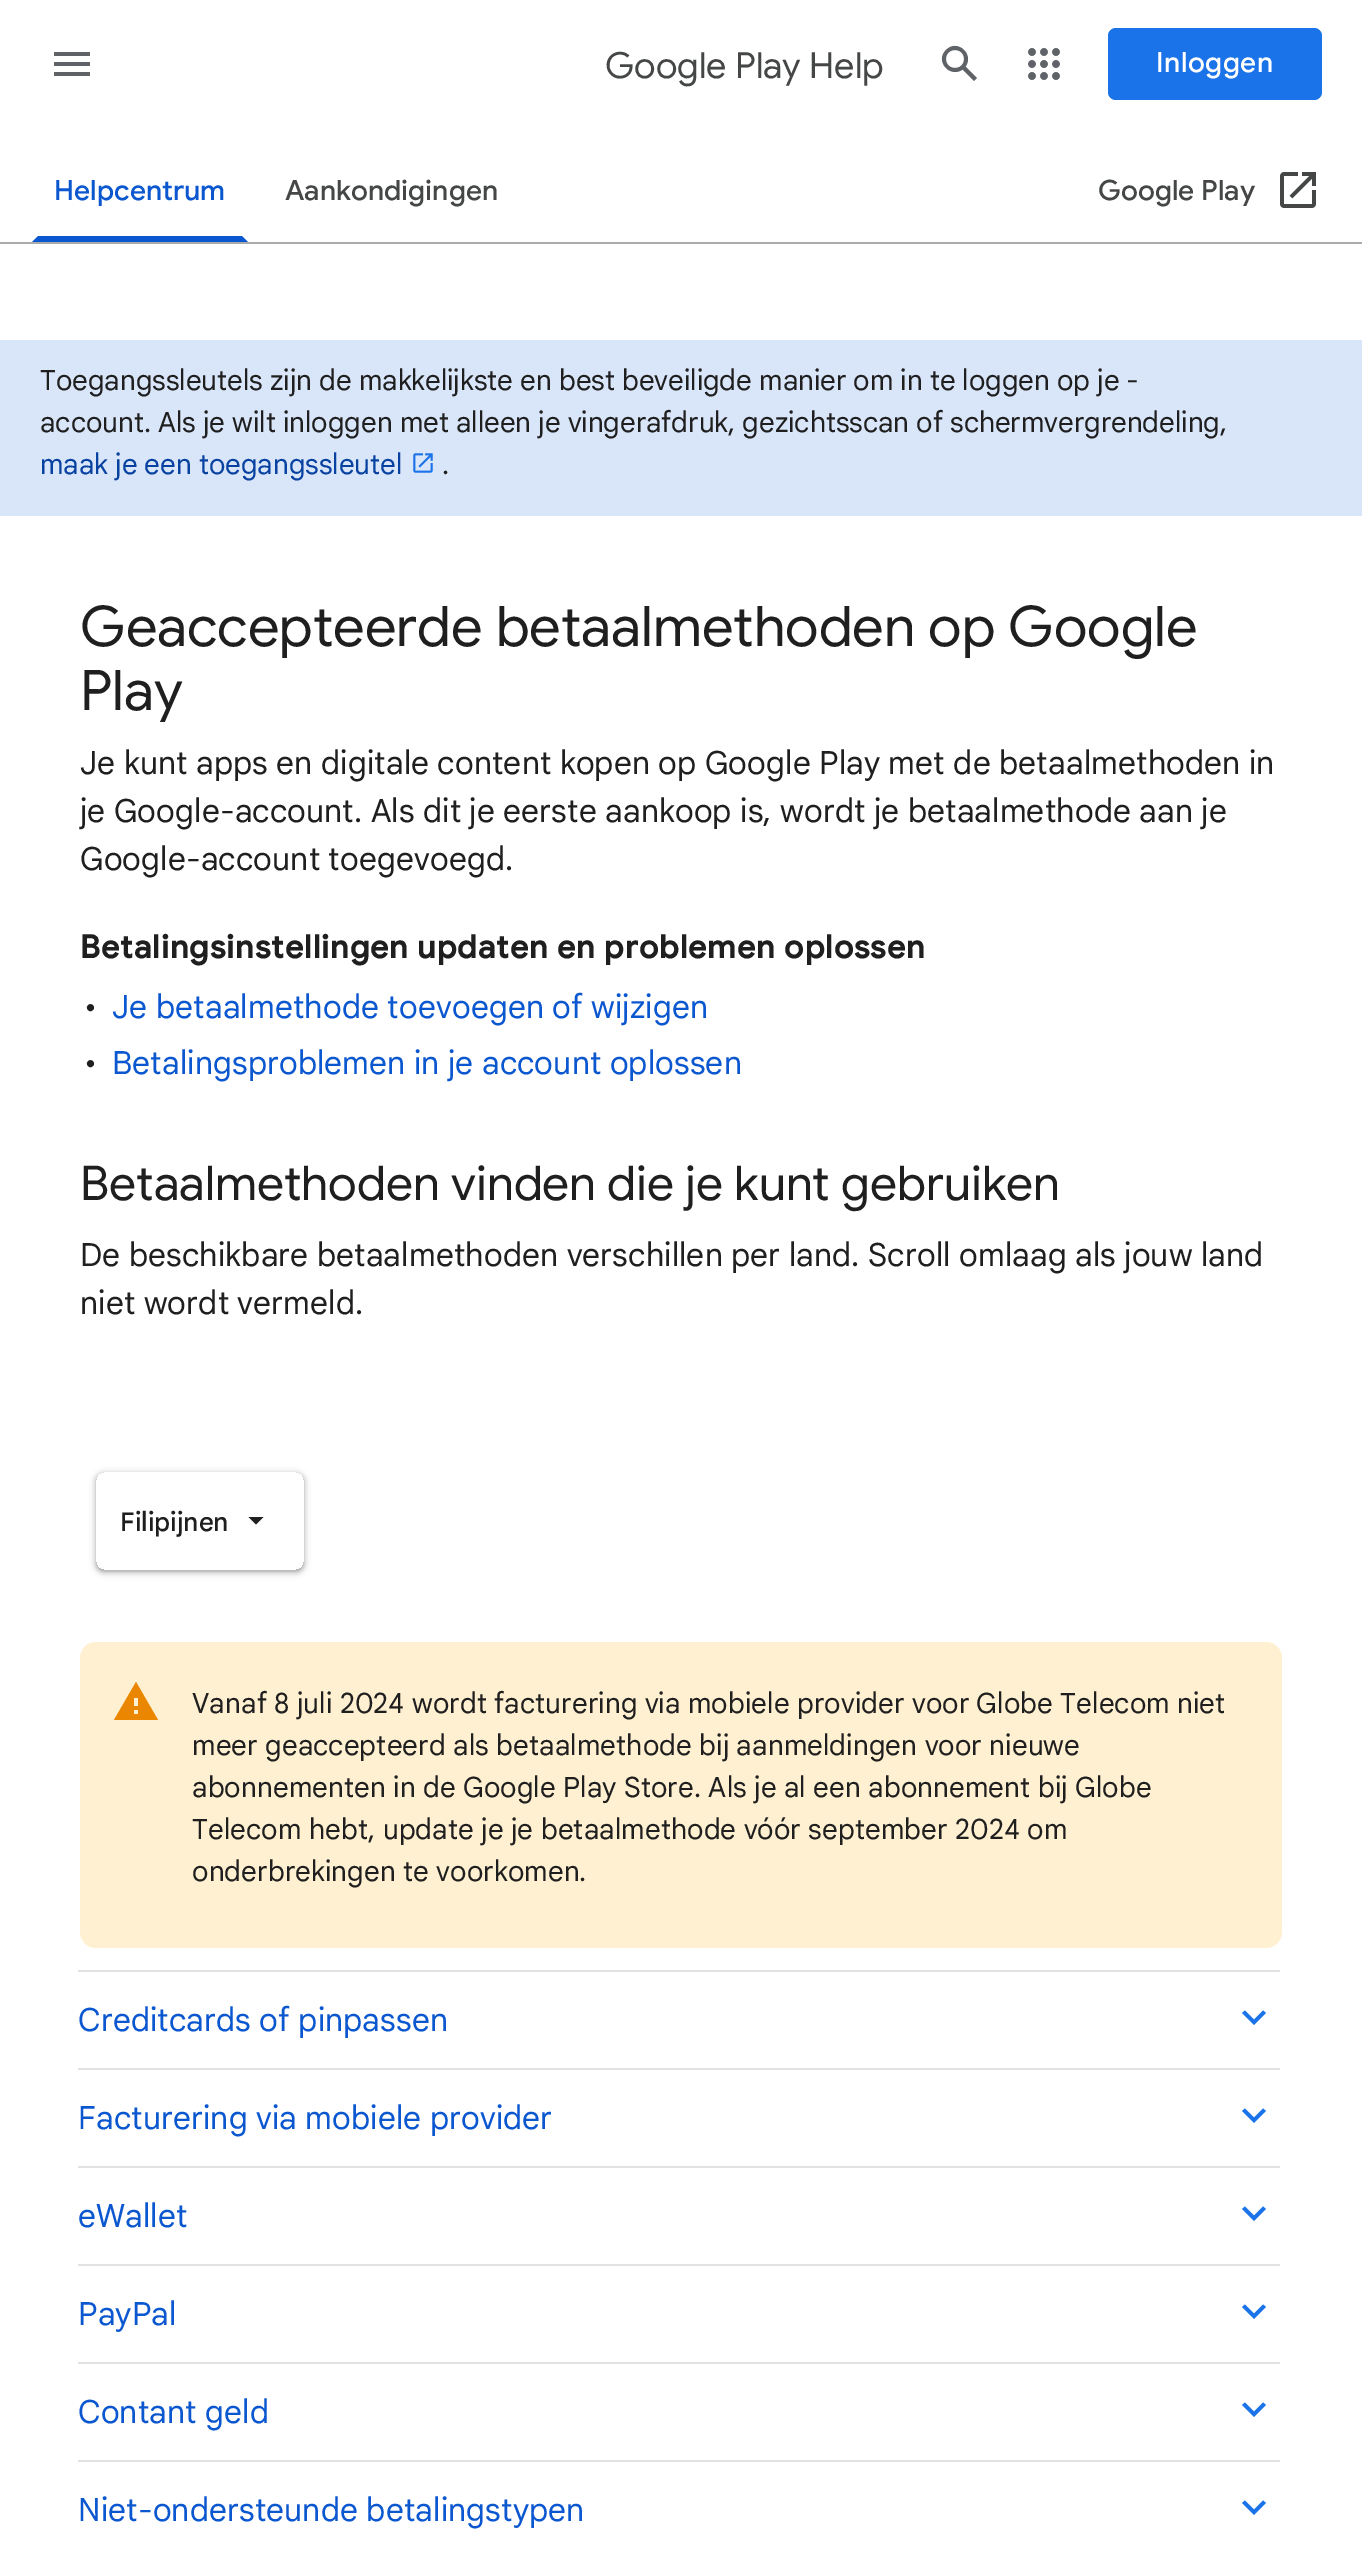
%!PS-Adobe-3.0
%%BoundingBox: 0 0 1362 2556
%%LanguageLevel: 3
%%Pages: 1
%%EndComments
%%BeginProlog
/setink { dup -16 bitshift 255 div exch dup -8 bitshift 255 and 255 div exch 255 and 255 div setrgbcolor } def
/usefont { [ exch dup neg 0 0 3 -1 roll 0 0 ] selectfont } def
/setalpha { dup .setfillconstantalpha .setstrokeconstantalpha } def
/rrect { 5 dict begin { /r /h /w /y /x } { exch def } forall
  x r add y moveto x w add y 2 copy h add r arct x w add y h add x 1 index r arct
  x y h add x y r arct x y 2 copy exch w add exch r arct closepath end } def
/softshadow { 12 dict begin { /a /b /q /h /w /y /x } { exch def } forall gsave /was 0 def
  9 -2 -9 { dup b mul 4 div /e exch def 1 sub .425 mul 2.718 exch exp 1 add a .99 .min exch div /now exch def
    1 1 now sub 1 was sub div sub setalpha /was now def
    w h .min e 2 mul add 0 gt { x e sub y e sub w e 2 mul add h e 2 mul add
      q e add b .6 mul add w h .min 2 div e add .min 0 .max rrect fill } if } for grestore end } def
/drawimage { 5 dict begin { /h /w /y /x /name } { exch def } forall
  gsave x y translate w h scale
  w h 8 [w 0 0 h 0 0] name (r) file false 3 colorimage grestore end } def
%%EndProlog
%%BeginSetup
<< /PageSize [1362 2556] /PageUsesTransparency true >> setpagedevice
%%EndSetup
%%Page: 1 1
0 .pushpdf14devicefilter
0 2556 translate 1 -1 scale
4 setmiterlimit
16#FFFFFF setink
0 0 1362 2556 rectfill
16#5F6368 setink
54 76 moveto 90 76 lineto 90 72 lineto 54 72 lineto closepath 54 66 moveto 90 66 lineto 90 62 lineto 54 62 lineto closepath 54 52 moveto 54 56 lineto 90 56 lineto 90 52 lineto closepath fill
/GoogleSans-Regular 36 usefont
16#444746 setink
605 78 moveto (Google Play Help) show
16#5F6368 setink
977 78 moveto 965.5 66.5 lineto 974.5 54 957 38.5 946 50 curveto 934.5 61 950 78.5 962.5 69.5 curveto 974 81 lineto closepath 946 59 moveto 946 47 964 47 964 59 curveto 964 71 946 71 946 59 curveto closepath fill
(img1.raw) 1028 48 32 32 drawimage
16#1A73E8 setink
1108 28 214 72 8 rrect fill
/GoogleSans-Medium 28 usefont
16#FFFFFF setink
1156 72 moveto 0.5 0 (Inloggen) ashow
16#A9ACAA setink
0 242 1362 2 rectfill
16#0B57D0 setink
248 242 moveto 32 242 lineto 38 236 lineto 242 236 lineto closepath fill
54 200 moveto (Helpcentrum) show
16#444746 setink
285 200 moveto (Aankondigingen) show
1098 200 moveto (Google Play) show
(img2.raw) 1280 172 36 36 drawimage
16#D9E5F8 setink
0 340 1362 176 rectfill
/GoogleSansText-Regular 28 usefont
16#1F1F1F setink
40 390 moveto (Toegangssleutels zijn de makkelijkste en best beveiligde manier om in te loggen op je -) show
40 432 moveto (account. Als je wilt inloggen met alleen je vingerafdruk, gezichtsscan of schermvergrendeling,) show
16#0842A0 setink
40 474 moveto (maak je een toegangssleutel) show
(img3.raw) 413 453 20 20 drawimage
16#1F1F1F setink
442 474 moveto (.) show
/GoogleSans-Regular 56 usefont
80 646 moveto (Geaccepteerde betaalmethoden op Google) show
80 710 moveto (Play) show
/GoogleSansText-Regular 32 usefont
80 774 moveto 0.15 0 (Je kunt apps en digitale content kopen op Google Play met de betaalmethoden in) ashow
80 822 moveto 0.15 0 (je Google-account. Als dit je eerste aankoop is, wordt je betaalmethode aan je) ashow
80 870 moveto 0.15 0 (Google-account toegevoegd.) ashow
/GoogleSans-Bold 32 usefont
80 958 moveto 0.95 0 (Betalingsinstellingen updaten en problemen oplossen) ashow
/GoogleSansText-Regular 32 usefont
84 1018 moveto 0.15 0 (•) ashow
16#0B57D0 setink
112 1018 moveto 0.15 0 (Je betaalmethode toevoegen of wijzigen) ashow
16#1F1F1F setink
84 1074 moveto 0.15 0 (•) ashow
16#0B57D0 setink
112 1074 moveto 0.15 0 (Betalingsproblemen in je account oplossen) ashow
/GoogleSans-Regular 48 usefont
16#1F1F1F setink
80 1200 moveto (Betaalmethoden vinden die je kunt gebruiken) show
/GoogleSansText-Regular 32 usefont
80 1266 moveto 0.15 0 (De beschikbare betaalmethoden verschillen per land. Scroll omlaag als jouw land) ashow
80 1314 moveto 0.15 0 (niet wordt vermeld.) ashow
gsave
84 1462 moveto 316 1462 lineto 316 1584 lineto 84 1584 lineto closepath 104 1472 moveto 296 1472 lineto 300.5 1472 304 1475.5 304 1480 curveto 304 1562 lineto 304 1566.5 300.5 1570 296 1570 curveto 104 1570 lineto 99.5 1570 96 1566.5 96 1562 curveto 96 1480 lineto 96 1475.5 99.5 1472 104 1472 curveto closepath eoclip newpath
16#303030 setink
94 1472 212 102 10 3 0.15 softshadow
grestore
gsave
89 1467 moveto 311 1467 lineto 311 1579 lineto 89 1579 lineto closepath 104 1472 moveto 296 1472 lineto 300.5 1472 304 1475.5 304 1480 curveto 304 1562 lineto 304 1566.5 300.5 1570 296 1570 curveto 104 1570 lineto 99.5 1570 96 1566.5 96 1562 curveto 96 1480 lineto 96 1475.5 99.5 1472 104 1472 curveto closepath eoclip newpath
16#303030 setink
96 1474 208 98 8 2 0.3 softshadow
grestore
/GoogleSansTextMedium-Medium 26 usefont
120 1531 moveto (Filipijnen) show
248.5 1517 moveto 256 1524.5 lineto 263.5 1517 lineto closepath fill
16#FFF0D1 setink
80 1642 1202 306 16 rrect fill
16#EA8600 setink
114 1720 moveto 158 1720 lineto 136 1682 lineto closepath 138 1714 moveto 134 1714 lineto 134 1710 lineto 138 1710 lineto closepath 138 1706 moveto 134 1706 lineto 134 1698 lineto 138 1698 lineto closepath fill
/GoogleSansText-Regular 28 usefont
16#1F1F1F setink
192 1713 moveto 0.15 0 (Vanaf 8 juli 2024 wordt facturering via mobiele provider voor Globe Telecom niet) ashow
192 1755 moveto 0.15 0 (meer geaccepteerd als betaalmethode bij aanmeldingen voor nieuwe) ashow
192 1797 moveto 0.15 0 (abonnementen in de Google Play Store. Als je al een abonnement bij Globe) ashow
192 1839 moveto 0.15 0 (Telecom hebt, update je je betaalmethode vóór september 2024 om) ashow
192 1881 moveto 0.15 0 (onderbrekingen te voorkomen.) ashow
16#E1E3E1 setink
78 1970 1202 2 rectfill
/GoogleSansText-Regular 32 usefont
16#0B57D0 setink
78 2031 moveto 0.15 0 (Creditcards of pinpassen) ashow
16#1A73E8 setink
1245 2010.5 moveto 1254 2019.5 lineto 1263 2010.5 lineto 1266 2013 lineto 1254 2025 lineto 1242 2013 lineto closepath fill
16#E1E3E1 setink
78 2068 1202 2 rectfill
16#0B57D0 setink
78 2129 moveto 0.15 0 (Facturering via mobiele provider) ashow
16#1A73E8 setink
1245 2108.5 moveto 1254 2117.5 lineto 1263 2108.5 lineto 1266 2111 lineto 1254 2123 lineto 1242 2111 lineto closepath fill
16#E1E3E1 setink
78 2166 1202 2 rectfill
16#0B57D0 setink
78 2227 moveto 0.15 0 (eWallet) ashow
16#1A73E8 setink
1245 2206.5 moveto 1254 2215.5 lineto 1263 2206.5 lineto 1266 2209 lineto 1254 2221 lineto 1242 2209 lineto closepath fill
16#E1E3E1 setink
78 2264 1202 2 rectfill
16#0B57D0 setink
78 2325 moveto 0.15 0 (PayPal) ashow
16#1A73E8 setink
1245 2304.5 moveto 1254 2313.5 lineto 1263 2304.5 lineto 1266 2307 lineto 1254 2319 lineto 1242 2307 lineto closepath fill
16#E1E3E1 setink
78 2362 1202 2 rectfill
16#0B57D0 setink
78 2423 moveto 0.15 0 (Contant geld) ashow
16#1A73E8 setink
1245 2402.5 moveto 1254 2411.5 lineto 1263 2402.5 lineto 1266 2405 lineto 1254 2417 lineto 1242 2405 lineto closepath fill
16#E1E3E1 setink
78 2460 1202 2 rectfill
16#0B57D0 setink
78 2521 moveto 0.15 0 (Niet-ondersteunde betalingstypen) ashow
16#1A73E8 setink
1245 2500.5 moveto 1254 2509.5 lineto 1263 2500.5 lineto 1266 2503 lineto 1254 2515 lineto 1242 2503 lineto closepath fill
.poppdf14devicefilter showpage
%%EOF
